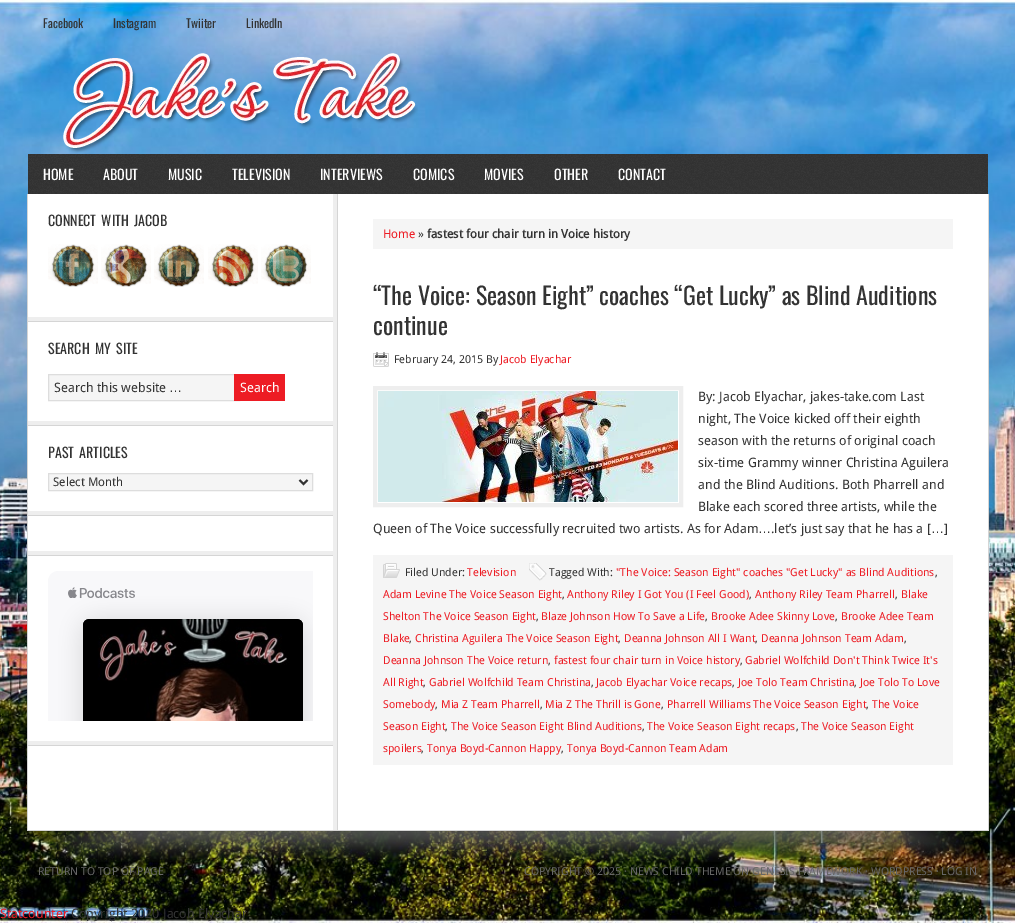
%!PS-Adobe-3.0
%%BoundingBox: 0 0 1015 923
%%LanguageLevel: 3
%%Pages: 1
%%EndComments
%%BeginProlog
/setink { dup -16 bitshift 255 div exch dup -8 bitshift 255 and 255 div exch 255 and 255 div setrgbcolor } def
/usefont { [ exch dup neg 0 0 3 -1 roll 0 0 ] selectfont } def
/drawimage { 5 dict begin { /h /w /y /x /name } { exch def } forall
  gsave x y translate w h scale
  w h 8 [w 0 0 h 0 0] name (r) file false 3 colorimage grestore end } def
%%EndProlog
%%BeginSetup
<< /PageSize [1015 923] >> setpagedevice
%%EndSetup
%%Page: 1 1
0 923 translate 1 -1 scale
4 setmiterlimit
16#FFFFFF setink
0 0 1015 923 rectfill
(img1.raw) 0 0 1015 923 drawimage
/Oswald-Regular 12 usefont
16#333333 setink
[
    [(Facebook) 43 28]
    [(Instagram) 113 28]
    [(Twiiter) 186 28]
    [(LinkedIn) 246 28]
] { aload pop moveto show } forall
(img2.raw) 63 53 355 100 drawimage
(img3.raw) 28 154 960 40 drawimage
/Oswald-Regular 14 usefont
16#FFFFFF setink
[
    [(HOME) 43 180]
    [(ABOUT) 103 180]
    [(MUSIC) 168 180]
    [(TELEVISION) 232 180]
    [(INTERVIEWS) 320 180]
    [(COMICS) 413 180]
    [(MOVIES) 484 180]
    [(OTHER) 554 180]
    [(CONTACT) 618 180]
] { aload pop moveto show } forall
(img4.raw) 28 194 960 636 drawimage
[
    [988 194 1 637 16#D5D5D5]
    [27 830 962 1 16#D5D5D5]
    [27 194 1 637 16#D5D5D5]
    [28 321 305 1 16#D5D5D5]
    [28 317 305 4 16#EEEEEE]
] { aload pop setink rectfill } forall
16#333333 setink
48 226 moveto 2 0 32 (CONNECT WITH JACOB) widthshow
(img5.raw) 48 244 50 43 drawimage
(img6.raw) 101 244 50 43 drawimage
(img7.raw) 154 244 50 43 drawimage
(img8.raw) 208 244 50 43 drawimage
(img9.raw) 261 244 50 43 drawimage
16#D5D5D5 setink
28 425 305 1 rectfill
16#EEEEEE setink
28 421 305 4 rectfill
16#333333 setink
48 354 moveto 2 0 32 (SEARCH MY SITE) widthshow
16#F5F5F5 setink
49 375 185 25 rectfill
16#DDDDDD setink
48.5 374.5 191 26 rectstroke
/DroidSans-Regular 13 usefont
16#333333 setink
54 392 moveto (Search this website) show
/LiberationSans-Regular 13 usefont
169 392 moveto (…) show
16#ED1C24 setink
234 374 51 27 rectfill
/DroidSans-Regular 13 usefont
16#FFFFFF setink
240 392 moveto (Search) show
16#D5D5D5 setink
28 515 305 1 rectfill
16#EEEEEE setink
28 511 305 4 rectfill
/Oswald-Regular 14 usefont
16#333333 setink
48 458 moveto 2 0 32 (PAST ARTICLES) widthshow
16#F5F5F5 setink
48.5 473.5 moveto 312.5 473.5 lineto 312.5 490.5 lineto 48.5 490.5 lineto closepath gsave fill grestore
16#DDDDDD setink
stroke
16#333333 setink
2 setlinewidth
299.5 480 moveto 303.5 484 lineto 307.5 480 lineto stroke
/DroidSans-Regular 12 usefont
53 486 moveto (Select Month) show
[
    [28 555 305 1 16#D5D5D5]
    [28 551 305 4 16#EEEEEE]
    [28 745 305 1 16#D5D5D5]
    [28 741 305 4 16#EEEEEE]
] { aload pop setink rectfill } forall
(img10.raw) 48 571 265 150 drawimage
16#F5F5F5 setink
373 219 580 30 rectfill
16#ED1C24 setink
383 238 moveto (Home) show
16#333333 setink
418 238 moveto (») show
/DroidSans-Bold 12 usefont
427 238 moveto (fastest four chair turn in Voice history) show
/Oswald-Regular 24 usefont
373 305 moveto (“The Voice: Season Eight” coaches “Get Lucky” as Blind Auditions) show
373 335 moveto (continue) show
(img11.raw) 373 352 16 15 drawimage
/DroidSans-Regular 11 usefont
394 363 moveto (February 24, 2015 By) show
16#ED1C24 setink
500 363 moveto (Jacob Elyachar) show
16#EEEEEE setink
4 setlinewidth
375 388 306 117 rectstroke
(img12.raw) 378 391 300 111 drawimage
/DroidSans-Regular 13 usefont
16#333333 setink
[
    [(By: Jacob Elyachar, jakes-take.com Last) 698 401]
    [(night, The Voice kicked off their eighth) 698 423]
    [(season with the returns of original coach) 698 445]
    [(six-time Grammy winner Christina Aguilera) 698 467]
    [(and the Blind Auditions. Both Pharrell and) 698 489]
    [(Blake each scored three artists, while the) 698 511]
    [(Queen of The Voice successfully recruited two artists. As for Adam) 373 533]
] { aload pop moveto show } forall
/LiberationSans-Regular 13 usefont
758 533 moveto (…) show
/DroidSans-Regular 13 usefont
771 533 moveto (.let’s just say that he has a [) show
/LiberationSans-Regular 13 usefont
931 533 moveto (…) show
/DroidSans-Regular 13 usefont
944 533 moveto (]) show
16#F5F5F5 setink
373 555 580 210 rectfill
(img13.raw) 383 563 17 15 drawimage
/DroidSans-Regular 11 usefont
16#333333 setink
405 576 moveto (Filed Under:) show
16#ED1C24 setink
467 576 moveto (Television) show
(img14.raw) 529 563 18 18 drawimage
16#333333 setink
549 576 moveto (Tagged With:) show
16#ED1C24 setink
616 576 moveto ("The Voice: Season Eight" coaches "Get Lucky" as Blind Auditions) show
16#333333 setink
935 576 moveto (,) show
16#ED1C24 setink
383 598 moveto (Adam Levine The Voice Season Eight) show
16#333333 setink
562 598 moveto (,) show
16#ED1C24 setink
567 598 moveto (Anthony Riley I Got You \(I Feel Good\)) show
16#333333 setink
749 598 moveto (,) show
16#ED1C24 setink
755 598 moveto (Anthony Riley Team Pharrell) show
16#333333 setink
895 598 moveto (,) show
16#ED1C24 setink
901 598 moveto (Blake) show
383 620 moveto (Shelton The Voice Season Eight) show
16#333333 setink
536 620 moveto (,) show
16#ED1C24 setink
541 620 moveto (Blaze Johnson How To Save a Life) show
16#333333 setink
705 620 moveto (,) show
16#ED1C24 setink
711 620 moveto (Brooke Adee Skinny Love) show
16#333333 setink
835 620 moveto (,) show
16#ED1C24 setink
841 620 moveto (Brooke Adee Team) show
383 642 moveto (Blake) show
16#333333 setink
409 642 moveto (,) show
16#ED1C24 setink
415 642 moveto (Christina Aguilera The Voice Season Eight) show
16#333333 setink
618 642 moveto (,) show
16#ED1C24 setink
624 642 moveto (Deanna Johnson All I Want) show
16#333333 setink
755 642 moveto (,) show
16#ED1C24 setink
761 642 moveto (Deanna Johnson Team Adam) show
16#333333 setink
904 642 moveto (,) show
16#ED1C24 setink
383 664 moveto (Deanna Johnson The Voice return) show
16#333333 setink
548 664 moveto (,) show
16#ED1C24 setink
554 664 moveto (fastest four chair turn in Voice history) show
16#333333 setink
740 664 moveto (,) show
16#ED1C24 setink
745 664 moveto (Gabriel Wolfchild Don't Think Twice It's) show
383 686 moveto (All Right) show
16#333333 setink
423 686 moveto (,) show
16#ED1C24 setink
429 686 moveto (Gabriel Wolfchild Team Christina) show
16#333333 setink
591 686 moveto (,) show
16#ED1C24 setink
596 686 moveto (Jacob Elyachar Voice recaps) show
16#333333 setink
732 686 moveto (,) show
16#ED1C24 setink
738 686 moveto (Joe Tolo Team Christina) show
16#333333 setink
854 686 moveto (,) show
16#ED1C24 setink
860 686 moveto (Joe Tolo To Love) show
383 708 moveto (Somebody) show
16#333333 setink
435 708 moveto (,) show
16#ED1C24 setink
441 708 moveto (Mia Z Team Pharrell) show
16#333333 setink
540 708 moveto (,) show
16#ED1C24 setink
545 708 moveto (Mia Z The Thrill is Gone) show
16#333333 setink
661 708 moveto (,) show
16#ED1C24 setink
667 708 moveto (Pharrell Williams The Voice Season Eight) show
16#333333 setink
866 708 moveto (,) show
16#ED1C24 setink
872 708 moveto (The Voice) show
383 730 moveto (Season Eight) show
16#333333 setink
445 730 moveto (,) show
16#ED1C24 setink
451 730 moveto (The Voice Season Eight Blind Auditions) show
16#333333 setink
642 730 moveto (,) show
16#ED1C24 setink
647 730 moveto (The Voice Season Eight recaps) show
16#333333 setink
796 730 moveto (,) show
16#ED1C24 setink
801 730 moveto (The Voice Season Eight) show
383 752 moveto (spoilers) show
16#333333 setink
421 752 moveto (,) show
16#ED1C24 setink
427 752 moveto (Tonya Boyd-Cannon Happy) show
16#333333 setink
561 752 moveto (,) show
16#ED1C24 setink
567 752 moveto (Tonya Boyd-Cannon Team Adam) show
(img15.raw) 43 831 930 31 drawimage
16#666666 setink
38 875 moveto (RETURN TO TOP OF PAGE) show
524 875 moveto (COPYRIGHT © 2025 · NEWS CHILD THEME ON GENESIS FRAMEWORK · WORDPRESS · LOG IN) show
/DroidSans-Regular 13 usefont
16#ED1C24 setink
0 918 moveto (Statcounter) show
16#333333 setink
71 918 moveto (Copyright 2020 Jacob Elyachar) show
showpage
%%EOF
